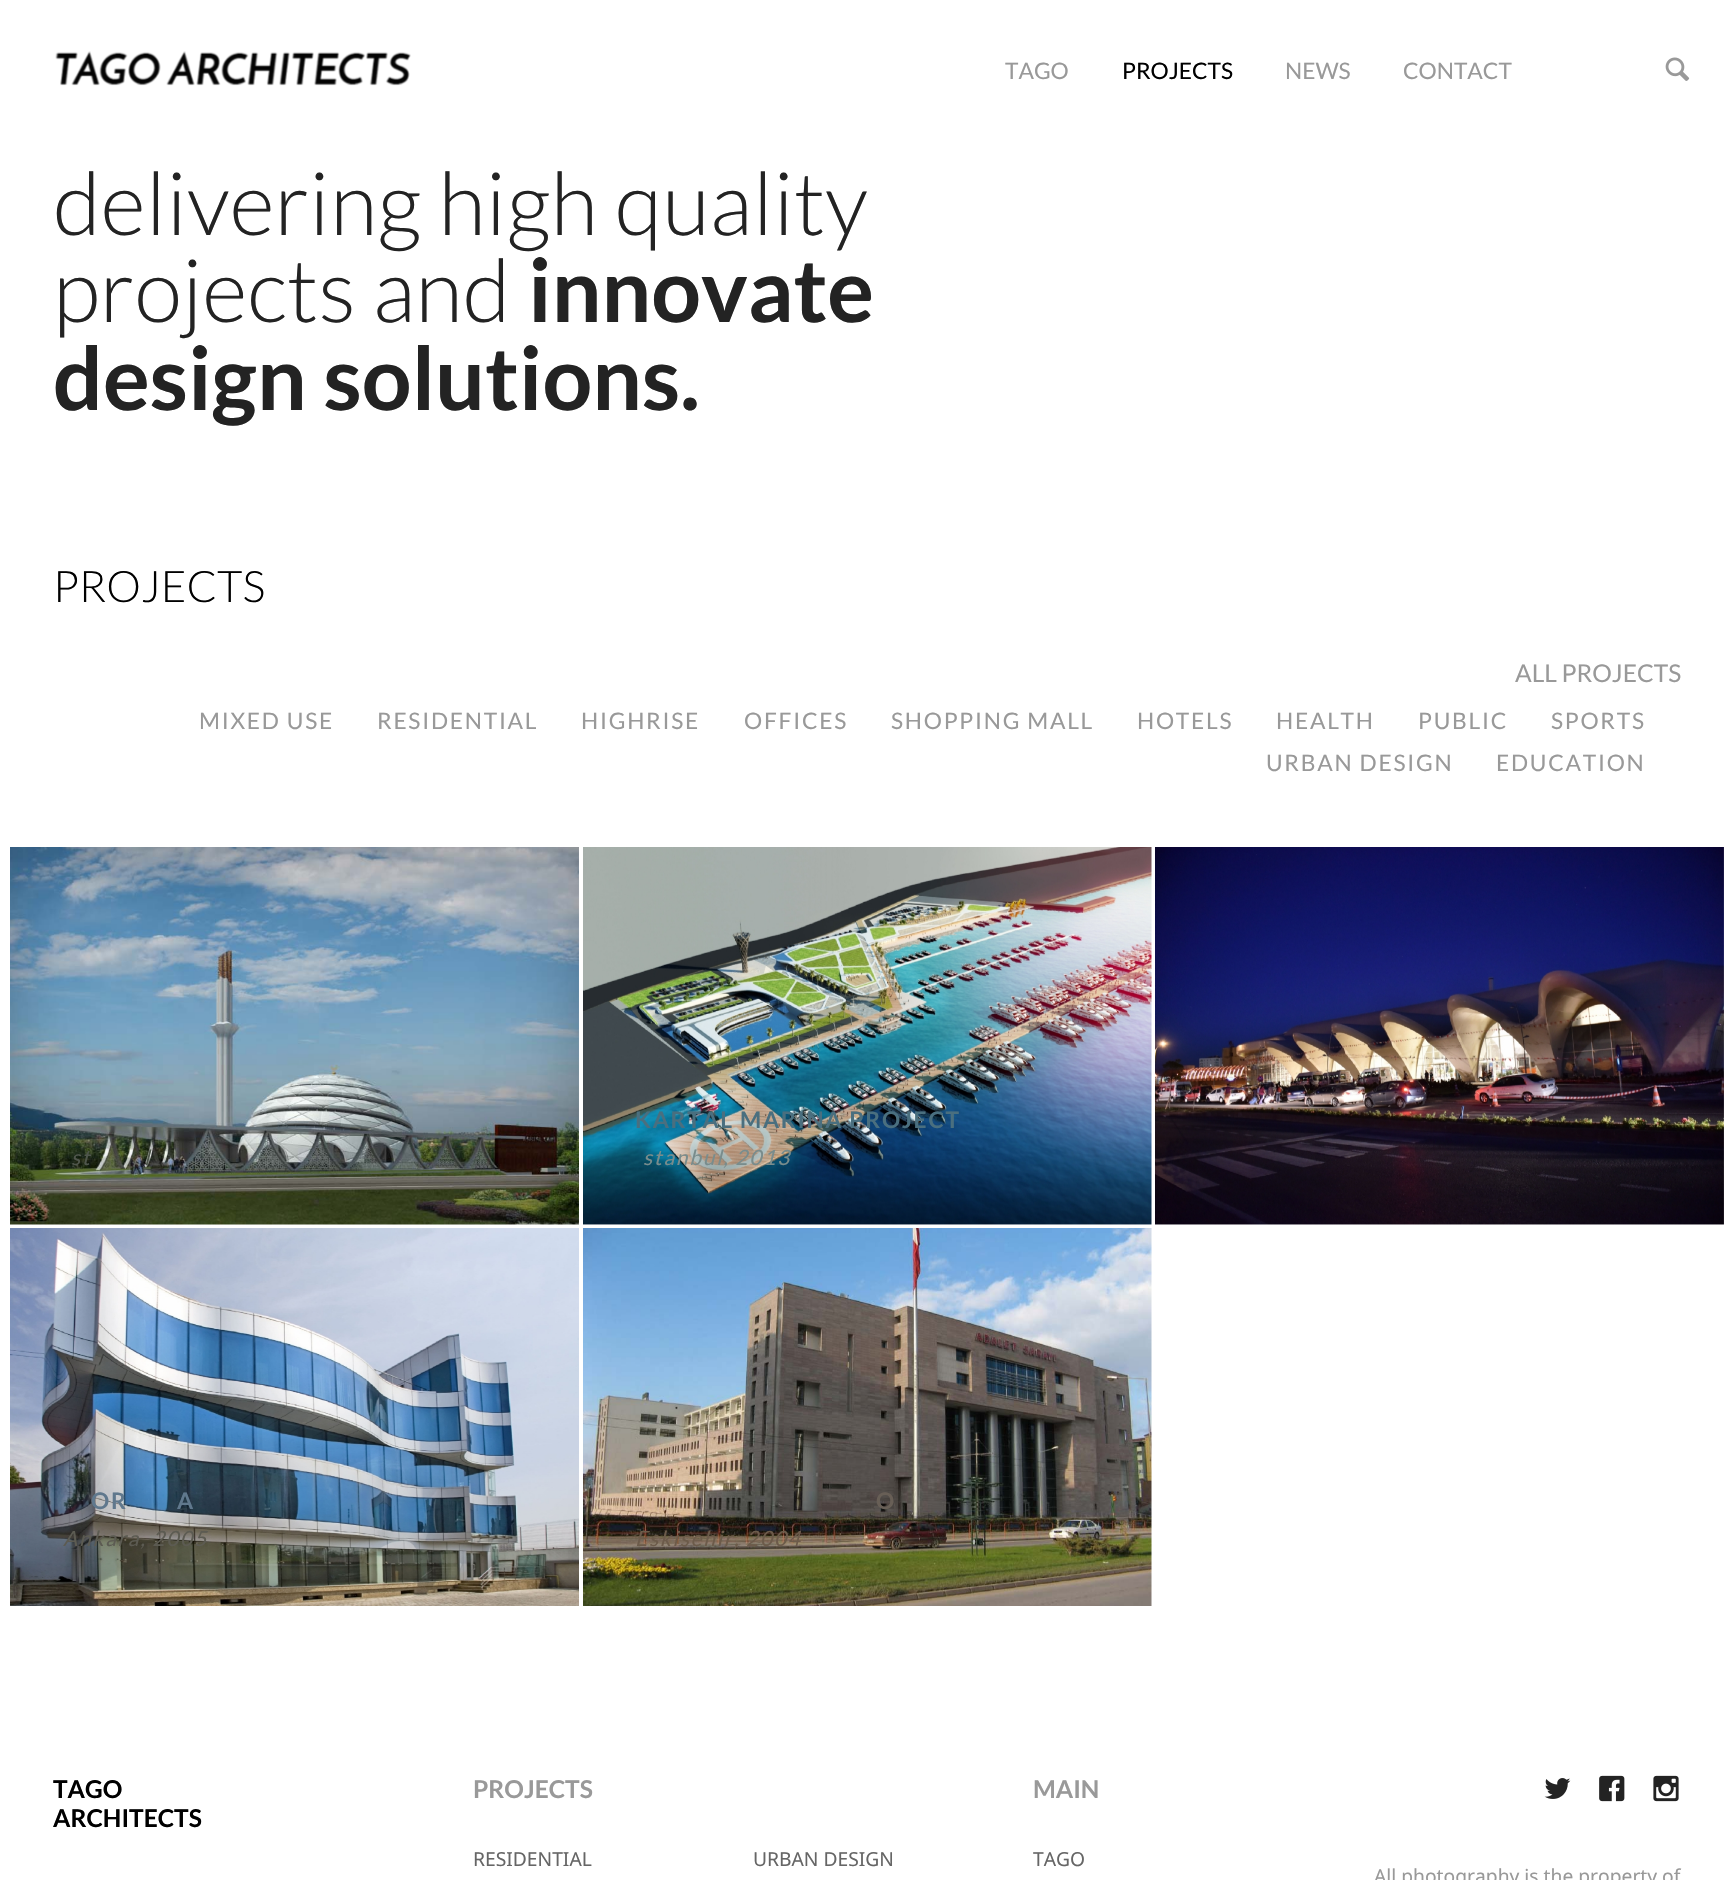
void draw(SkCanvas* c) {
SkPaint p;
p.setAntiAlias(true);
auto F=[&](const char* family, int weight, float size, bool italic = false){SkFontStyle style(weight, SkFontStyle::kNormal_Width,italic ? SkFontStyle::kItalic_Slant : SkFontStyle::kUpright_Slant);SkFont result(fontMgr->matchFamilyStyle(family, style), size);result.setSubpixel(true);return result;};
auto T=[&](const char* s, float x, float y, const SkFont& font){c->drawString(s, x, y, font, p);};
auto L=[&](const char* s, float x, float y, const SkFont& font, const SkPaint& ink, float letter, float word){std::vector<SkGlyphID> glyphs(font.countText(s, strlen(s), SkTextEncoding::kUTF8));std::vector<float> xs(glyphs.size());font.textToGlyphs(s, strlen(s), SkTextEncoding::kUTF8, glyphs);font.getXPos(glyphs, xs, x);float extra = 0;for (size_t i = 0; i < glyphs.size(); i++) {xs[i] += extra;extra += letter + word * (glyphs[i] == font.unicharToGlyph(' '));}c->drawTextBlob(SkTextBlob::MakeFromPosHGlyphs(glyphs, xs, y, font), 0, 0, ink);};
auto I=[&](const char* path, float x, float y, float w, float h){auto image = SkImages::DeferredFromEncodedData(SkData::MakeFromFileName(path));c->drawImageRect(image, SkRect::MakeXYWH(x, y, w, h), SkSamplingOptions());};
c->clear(0xffffffff);
I("1.png",55,51,356,35);
auto f1 = F("Lato",400,22.75);
p.setColor(0xff999999);
T("TAGO",1005,79,f1);
p.setColor(0xff000000);
T("PROJECTS",1122,79,f1);
p.setColor(0xff999999);
T("NEWS",1285,79,f1);
T("CONTACT",1403,79,f1);
I("2.png",1665,57,25,24);
auto f2 = F("Lato",300,87.5);
p.setColor(0xff232323);
T("delivering high quality",53,235,f2);
T("projects and",53,322,f2);
auto f3 = F("Lato",700,87.5);
T("innovate",528,322,f3);
T("design solutions.",53,410,f3);
auto f4 = F("Lato",300,43.5);
p.setColor(0xff000000);
T("PROJECTS",53,602,f4);
auto f5 = F("Lato",400,24.5);
p.setColor(0xff999999);
T("ALL PROJECTS",1515,682,f5);
L("MIXED USE",199,729,f1,p,1.75,0);
L("RESIDENTIAL",377,729,f1,p,1.75,0);
L("HIGHRISE",581,729,f1,p,1.75,0);
L("OFFICES",744,729,f1,p,1.75,0);
L("SHOPPING MALL",891,729,f1,p,1.75,0);
L("HOTELS",1137,729,f1,p,1.75,0);
L("HEALTH",1276,729,f1,p,1.75,0);
L("PUBLIC",1418,729,f1,p,1.75,0);
L("SPORTS",1551,729,f1,p,1.75,0);
L("URBAN DESIGN",1266,771,f1,p,1.75,0);
L("EDUCATION",1496,771,f1,p,1.75,0);
I("3.png",10,847,569,378);
auto f6 = F("Lato",400,21,true);
p.setColor(0xff4f564c);
L("st",71,1165,f6,p,1.75,0);
L("l",144,1165,f6,p,1.75,0);
I("4.png",583,847,569,378);
auto f7 = F("Lato",700,22.75);
p.setColor(0xff4a6f7f);
L("KARTAL MARINA PROJECT",635,1128,f7,p,1.75,0);
p.setColor(0xff798c8c);
L("stanbul, 2013",643,1165,f6,p,1.75,0);
I("5.png",1155,847,569,378);
I("6.png",10,1228,569,378);
p.setColor(0xff60788d);
L("OR",91,1509,f7,p,1.75,0);
L("A",177,1509,f7,p,1.75,0);
p.setColor(0xff5c5b52);
L("Ankara, 2005",63,1546,f6,p,1.75,0);
I("7.png",583,1228,569,378);
p.setColor(0xff685f56);
L("O",876,1509,f7,p,1.75,0);
p.setColor(0xff6c5b4a);
L("Eskisehir, 2004",635,1546,f6,p,1.75,0);
auto f8 = F("Lato",700,24.5);
p.setColor(0xff000000);
T("TAGO",53,1798,f8);
T("ARCHITECTS",53,1827,f8);
p.setColor(0xff999999);
T("PROJECTS",473,1798,f8);
auto f9 = F("Noto Sans",400,19.25);
p.setColor(0xff666666);
T("RESIDENTIAL",473,1866,f9);
T("URBAN DESIGN",753,1866,f9);
p.setColor(0xff999999);
T("MAIN",1033,1798,f8);
p.setColor(0xff666666);
T("TAGO",1033,1866,f9);
I("8.png",1544,1778,27,21);
I("9.png",1599,1775,26,27);
I("10.png",1653,1775,26,27);
p.setColor(0xff999999);
T("All photography is the property of",1374,1883,f9);
}
